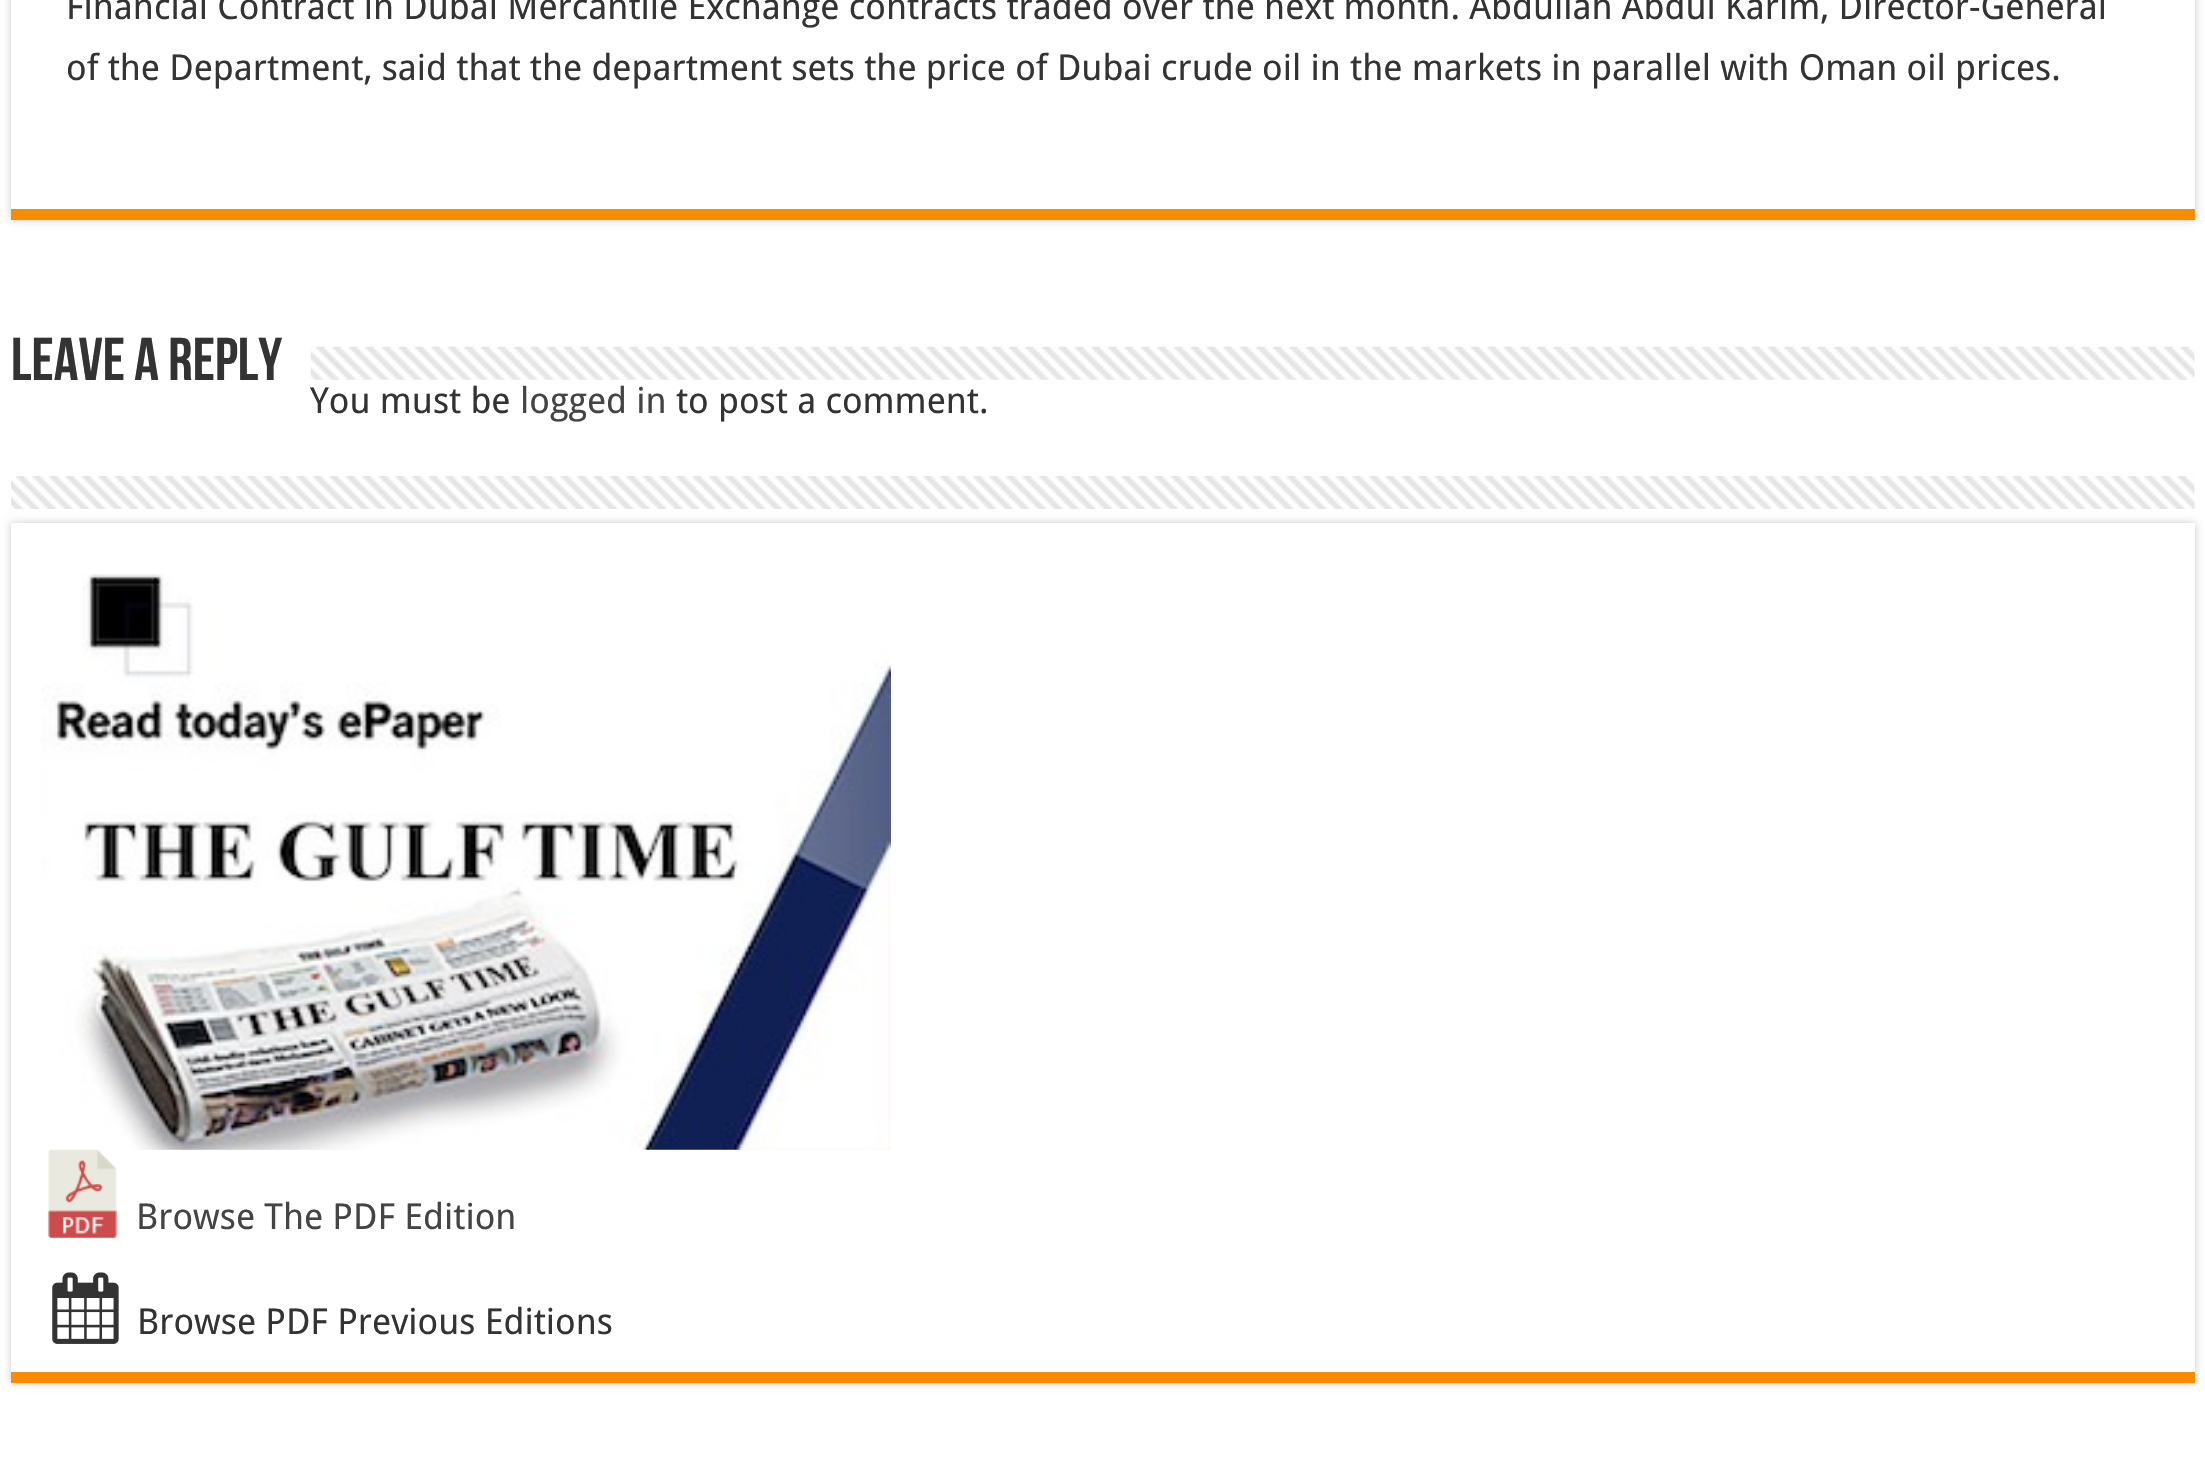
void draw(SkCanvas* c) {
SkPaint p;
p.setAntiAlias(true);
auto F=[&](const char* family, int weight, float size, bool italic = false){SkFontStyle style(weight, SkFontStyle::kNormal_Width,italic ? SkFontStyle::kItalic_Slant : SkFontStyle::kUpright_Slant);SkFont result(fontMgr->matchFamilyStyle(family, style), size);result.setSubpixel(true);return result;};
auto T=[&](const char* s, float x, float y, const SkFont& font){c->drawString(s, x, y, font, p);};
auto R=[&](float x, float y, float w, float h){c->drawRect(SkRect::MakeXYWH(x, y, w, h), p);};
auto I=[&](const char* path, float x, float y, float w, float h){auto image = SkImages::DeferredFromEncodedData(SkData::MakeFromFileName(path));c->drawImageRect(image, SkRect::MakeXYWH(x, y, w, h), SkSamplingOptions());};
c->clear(0xffffffff);
p.setColor(0xffcacaca);
p.setMaskFilter(SkMaskFilter::MakeBlur(kNormal_SkBlurStyle, 4));
c->drawRect(SkRect::MakeXYWH(11,-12,2184,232),p);
p.setMaskFilter(nullptr);
p.setColor(0xffffffff);
R(11,0,2184,209);
p.setColor(0xfff88c00);
R(11,209,2184,11);
auto f1 = F("Droid Sans",400,35.75);
p.setColor(0xff333333);
T("Financial Contract in Dubai Mercantile Exchange contracts traded over the next month. Abdullah Abdul Karim, Director-General",66,19,f1);
T("of the Department, said that the department sets the price of Dubai crude oil in the markets in parallel with Oman oil prices.",66,80,f1);
auto f2 = F("Bebas Neue",700,60.5);
T("Leave a Reply",11,380,f2);
I("1.png",310,346,1885,34);
T("You must be",310,413,f1);
p.setColor(0xff444444);
T("logged in",520,413,f1);
p.setColor(0xff333333);
T("to post a comment.",676,413,f1);
I("2.png",11,476,2184,33);
p.setColor(0xffcacaca);
p.setMaskFilter(SkMaskFilter::MakeBlur(kNormal_SkBlurStyle, 4));
c->drawRect(SkRect::MakeXYWH(11,523,2184,860),p);
p.setMaskFilter(nullptr);
p.setColor(0xffffffff);
R(11,523,2184,849);
p.setColor(0xfff88c00);
R(11,1372,2184,11);
I("3.png",41,574,850,576);
I("4.png",48,1149,70,89);
p.setColor(0xff444444);
T("Browse The PDF Edition",136,1229,f1);
I("5.png",52,1272,67,72);
p.setColor(0xff333333);
T("Browse PDF Previous Editions",137,1334,f1);
}
